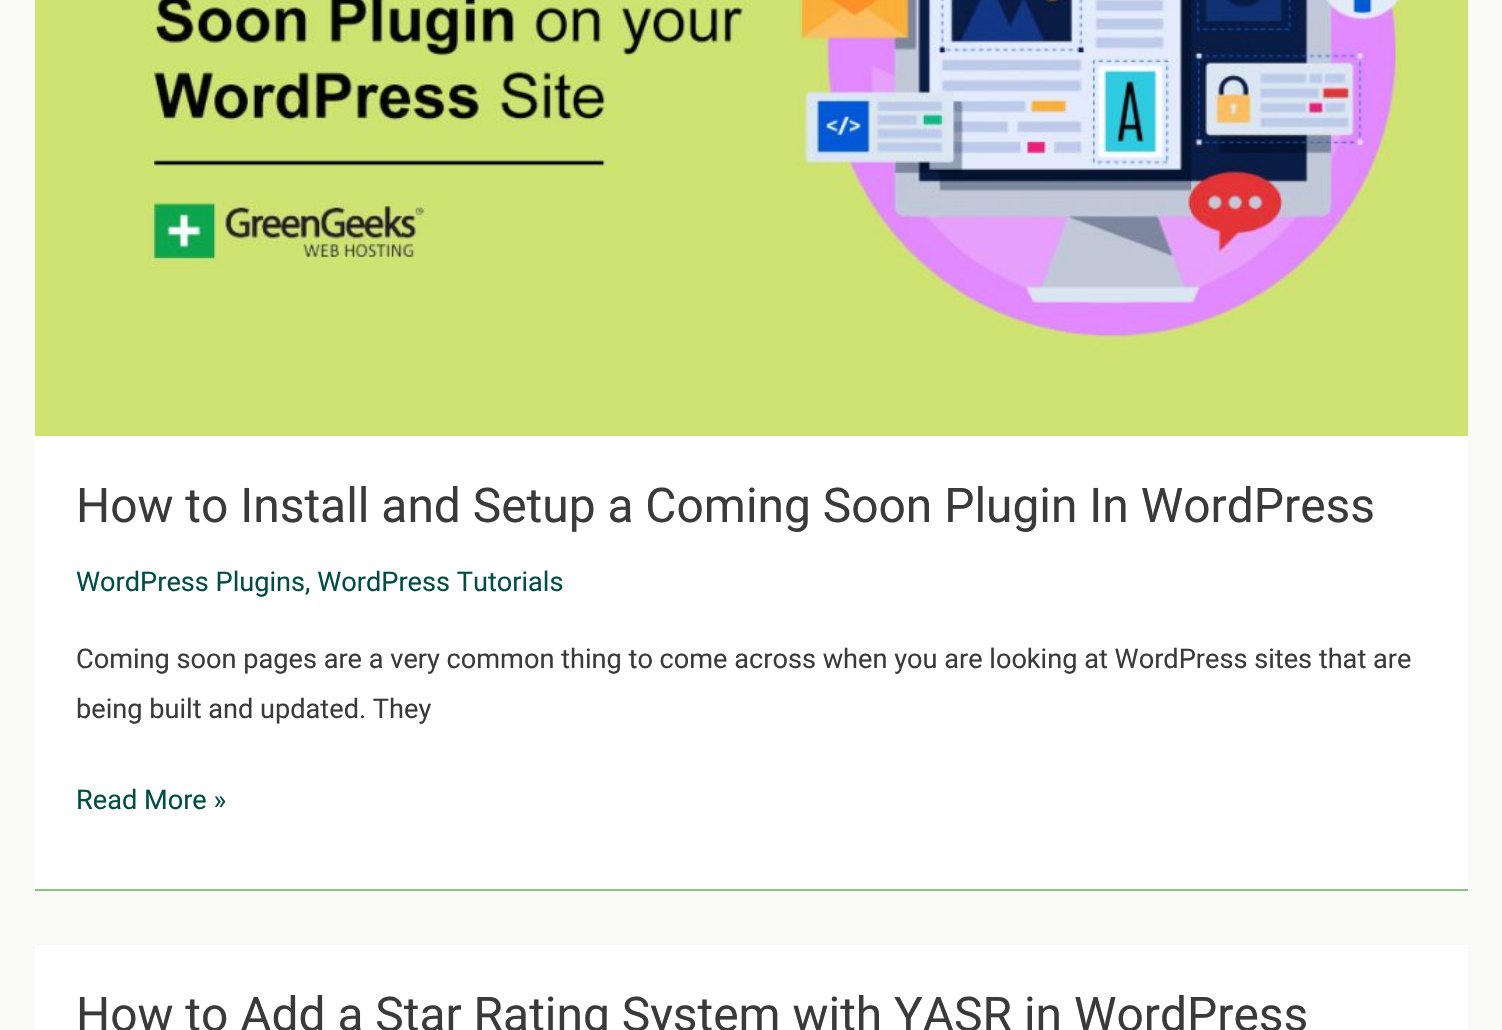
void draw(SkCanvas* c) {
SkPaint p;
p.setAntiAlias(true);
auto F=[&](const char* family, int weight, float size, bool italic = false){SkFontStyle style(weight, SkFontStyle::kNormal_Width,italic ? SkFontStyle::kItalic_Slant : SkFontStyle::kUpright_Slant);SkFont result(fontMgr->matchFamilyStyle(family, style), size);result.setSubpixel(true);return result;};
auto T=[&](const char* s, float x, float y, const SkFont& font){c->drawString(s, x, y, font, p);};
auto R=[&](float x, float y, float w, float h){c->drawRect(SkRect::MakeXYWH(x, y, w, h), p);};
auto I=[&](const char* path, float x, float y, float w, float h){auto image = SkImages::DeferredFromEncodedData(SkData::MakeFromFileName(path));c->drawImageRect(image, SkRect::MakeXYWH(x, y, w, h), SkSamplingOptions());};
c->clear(0xfffafaf7);
p.setColor(0xff88c57f);
R(35,889,1433,2);
p.setColor(0xffffffff);
R(35,436,1433,453);
I("1.png",35,0,1434,436);
auto f1 = F("Roboto",400,47.9);
p.setColor(0xff3a3a3a);
T("How to Install and Setup a Coming Soon Plugin In WordPress",76,522,f1);
auto f2 = F("Roboto",400,27.15);
p.setColor(0xff004d45);
T("WordPress Plugins, WordPress Tutorials",76,591,f2);
p.setColor(0xff3a3a3a);
T("Coming soon pages are a very common thing to come across when you are looking at WordPress sites that are",76,668,f2);
T("being built and updated. They",76,718,f2);
p.setColor(0xff004d45);
T("Read More »",76,809,f2);
p.setColor(0xffffffff);
R(35,945,1433,85);
p.setColor(0xff3a3a3a);
T("How to Add a Star Rating System with YASR in WordPress",76,1031,f1);
}
